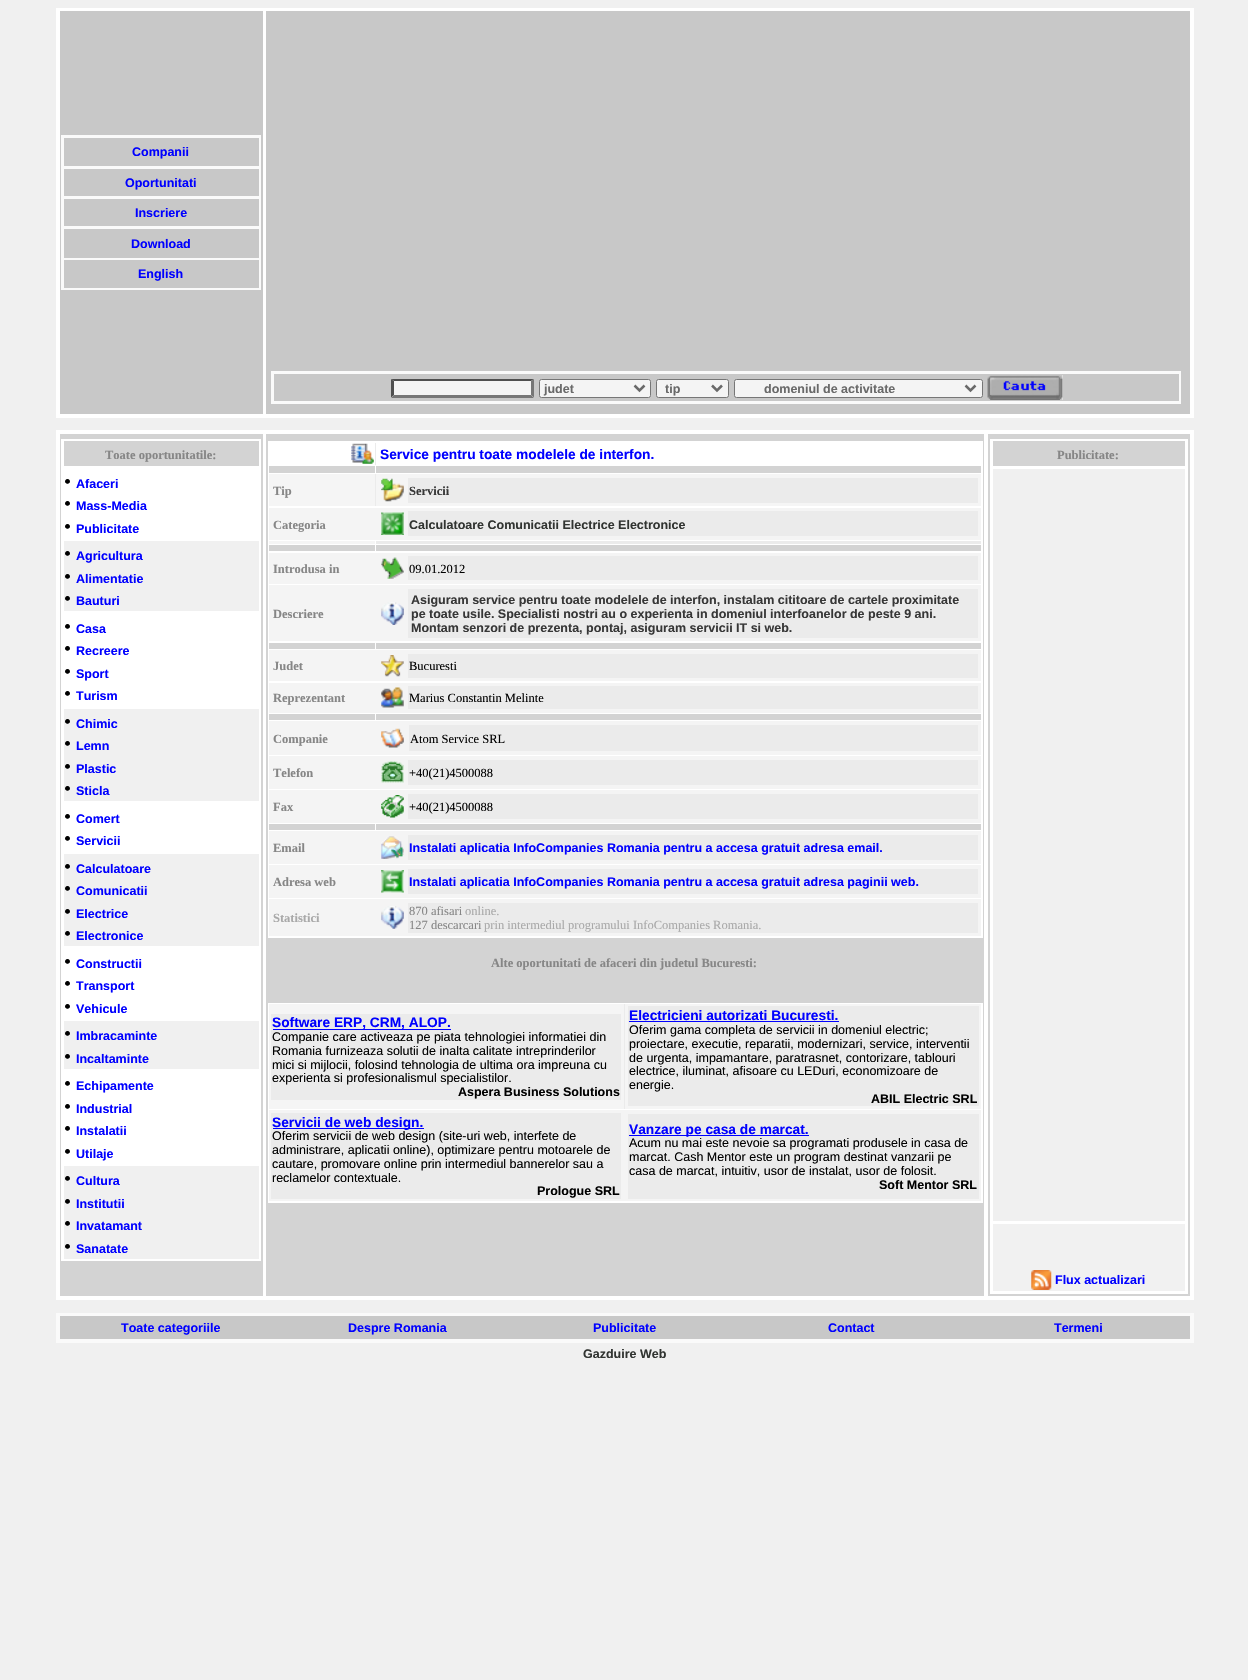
void draw(SkCanvas* c) {
SkPaint p;
p.setAntiAlias(true);
auto F=[&](const char* family, int weight, float size, bool italic = false){SkFontStyle style(weight, SkFontStyle::kNormal_Width,italic ? SkFontStyle::kItalic_Slant : SkFontStyle::kUpright_Slant);SkFont result(fontMgr->matchFamilyStyle(family, style), size);result.setSubpixel(true);return result;};
auto T=[&](const char* s, float x, float y, const SkFont& font){c->drawString(s, x, y, font, p);};
auto R=[&](float x, float y, float w, float h){c->drawRect(SkRect::MakeXYWH(x, y, w, h), p);};
auto I=[&](const char* path, float x, float y, float w, float h){auto image = SkImages::DeferredFromEncodedData(SkData::MakeFromFileName(path));c->drawImageRect(image, SkRect::MakeXYWH(x, y, w, h), SkSamplingOptions());};
auto P=[&](const char* data, bool evenOdd = false){SkPath result = *SkParsePath::FromSVGString(data);if (evenOdd) result.setFillType(SkPathFillType::kEvenOdd);return result;};
c->clear(0xfff0f0f0);
p.setColor(0xffffffff);
R(56,8,1138,410);
p.setColor(0xffc8c8c8);
R(60,11,203,403);
p.setColor(0xfffafafa);
R(61,135,200,155);
p.setColor(0xffc8c8c8);
R(64,138,195,28);
auto f1 = F("Liberation Sans",700,12.5);
p.setColor(0xff0000ff);
T("Companii",132,156,f1);
p.setColor(0xffc8c8c8);
R(64,169,195,27);
p.setColor(0xff0000ff);
T("Oportunitati",125,187,f1);
p.setColor(0xffc8c8c8);
R(64,199,195,27);
p.setColor(0xff0000ff);
T("Inscriere",135,217,f1);
p.setColor(0xffc8c8c8);
R(64,229,195,29);
p.setColor(0xff0000ff);
T("Download",131,248,f1);
p.setColor(0xffc8c8c8);
R(64,260,195,28);
p.setColor(0xff0000ff);
T("English",138,278,f1);
p.setColor(0xffc8c8c8);
R(266,11,924,403);
p.setColor(0xfffafafa);
R(271,371,910,33);
p.setColor(0xffc8c8c8);
R(274,374,905,27);
p.setColor(0xfff4f4f4);
R(391,379,143,19);
p.setColor(0xff4f4f4f);
c->drawPath(P("M391 379h143l-3 2h-137z"),p);
p.setColor(0xff767676);
c->drawPath(P("M534 379v18.5l-3-2.5v-14z"),p);
c->drawPath(P("M534 398h-143l3-3h137z"),p);
p.setColor(0xff4f4f4f);
c->drawPath(P("M391 397.5v-18.5l3 2v14z"),p);
p.setColor(0xfff4f4f4);
c->drawRoundRect(SkRect::MakeXYWH(539.5,379.5,111,18),2,2,p);
p.setStroke(true);
p.setStrokeWidth(1);
p.setColor(0xff767676);
c->drawRoundRect(SkRect::MakeXYWH(539.5,379.5,111,18),2,2,p);
p.setStrokeWidth(2.5);
p.setColor(0xff696969);
c->drawPath(P("M634.5 385.5l5 5l5-5"),p);
p.setStroke(false);
T("judet",544,393,f1);
p.setColor(0xfff4f4f4);
c->drawRoundRect(SkRect::MakeXYWH(656.5,379.5,72,18),2,2,p);
p.setStroke(true);
p.setStrokeWidth(1);
p.setColor(0xff767676);
c->drawRoundRect(SkRect::MakeXYWH(656.5,379.5,72,18),2,2,p);
p.setStrokeWidth(2.5);
p.setColor(0xff696969);
c->drawPath(P("M712 385.5l5 5l5-5"),p);
p.setStroke(false);
T("tip",665,393,f1);
p.setColor(0xfff4f4f4);
c->drawRoundRect(SkRect::MakeXYWH(734.5,379.5,248,18),2,2,p);
p.setStroke(true);
p.setStrokeWidth(1);
p.setColor(0xff767676);
c->drawRoundRect(SkRect::MakeXYWH(734.5,379.5,248,18),2,2,p);
p.setStrokeWidth(2.5);
p.setColor(0xff696969);
c->drawPath(P("M965.5 385.5l5 5l5-5"),p);
p.setStroke(false);
T("domeniul de activitate",764,393,f1);
p.setColor(0xfff4f4f4);
R(1062,375,1,25);
I("1.png",987,375,76,25);
p.setColor(0xffffffff);
R(56,430,1138,870);
p.setColor(0xffd3d3d3);
R(60,434,203,862);
p.setColor(0xffffffff);
R(61,439,200,822);
p.setColor(0xffd3d3d3);
R(64,441,195,25);
auto f2 = F("Liberation Serif",700,12.5);
p.setColor(0xff868686);
T("Toate oportunitatile:",105,459,f2);
auto f3 = F("Liberation Serif",400,20);
p.setColor(0xff000000);
T("•",64,488,f3);
p.setColor(0xff0000ff);
T("Afaceri",76,488,f1);
p.setColor(0xff000000);
T("•",64,510,f3);
p.setColor(0xff0000ff);
T("Mass-Media",76,510,f1);
p.setColor(0xff000000);
T("•",64,533,f3);
p.setColor(0xff0000ff);
T("Publicitate",76,533,f1);
p.setColor(0xfff0f0f0);
R(64,541,195,70);
p.setColor(0xff000000);
T("•",64,560,f3);
p.setColor(0xff0000ff);
T("Agricultura",76,560,f1);
p.setColor(0xff000000);
T("•",64,583,f3);
p.setColor(0xff0000ff);
T("Alimentatie",76,583,f1);
p.setColor(0xff000000);
T("•",64,605,f3);
p.setColor(0xff0000ff);
T("Bauturi",76,605,f1);
p.setColor(0xff000000);
T("•",64,633,f3);
p.setColor(0xff0000ff);
T("Casa",76,633,f1);
p.setColor(0xff000000);
T("•",64,655,f3);
p.setColor(0xff0000ff);
T("Recreere",76,655,f1);
p.setColor(0xff000000);
T("•",64,678,f3);
p.setColor(0xff0000ff);
T("Sport",76,678,f1);
p.setColor(0xff000000);
T("•",64,700,f3);
p.setColor(0xff0000ff);
T("Turism",76,700,f1);
p.setColor(0xfff0f0f0);
R(64,709,195,92);
p.setColor(0xff000000);
T("•",64,728,f3);
p.setColor(0xff0000ff);
T("Chimic",76,728,f1);
p.setColor(0xff000000);
T("•",64,750,f3);
p.setColor(0xff0000ff);
T("Lemn",76,750,f1);
p.setColor(0xff000000);
T("•",64,773,f3);
p.setColor(0xff0000ff);
T("Plastic",76,773,f1);
p.setColor(0xff000000);
T("•",64,795,f3);
p.setColor(0xff0000ff);
T("Sticla",76,795,f1);
p.setColor(0xff000000);
T("•",64,823,f3);
p.setColor(0xff0000ff);
T("Comert",76,823,f1);
p.setColor(0xff000000);
T("•",64,845,f3);
p.setColor(0xff0000ff);
T("Servicii",76,845,f1);
p.setColor(0xfff0f0f0);
R(64,854,195,92);
p.setColor(0xff000000);
T("•",64,873,f3);
p.setColor(0xff0000ff);
T("Calculatoare",76,873,f1);
p.setColor(0xff000000);
T("•",64,895,f3);
p.setColor(0xff0000ff);
T("Comunicatii",76,895,f1);
p.setColor(0xff000000);
T("•",64,918,f3);
p.setColor(0xff0000ff);
T("Electrice",76,918,f1);
p.setColor(0xff000000);
T("•",64,940,f3);
p.setColor(0xff0000ff);
T("Electronice",76,940,f1);
p.setColor(0xff000000);
T("•",64,968,f3);
p.setColor(0xff0000ff);
T("Constructii",76,968,f1);
p.setColor(0xff000000);
T("•",64,990,f3);
p.setColor(0xff0000ff);
T("Transport",76,990,f1);
p.setColor(0xff000000);
T("•",64,1013,f3);
p.setColor(0xff0000ff);
T("Vehicule",76,1013,f1);
p.setColor(0xfff0f0f0);
R(64,1021,195,48);
p.setColor(0xff000000);
T("•",64,1040,f3);
p.setColor(0xff0000ff);
T("Imbracaminte",76,1040,f1);
p.setColor(0xff000000);
T("•",64,1063,f3);
p.setColor(0xff0000ff);
T("Incaltaminte",76,1063,f1);
p.setColor(0xff000000);
T("•",64,1090,f3);
p.setColor(0xff0000ff);
T("Echipamente",76,1090,f1);
p.setColor(0xff000000);
T("•",64,1113,f3);
p.setColor(0xff0000ff);
T("Industrial",76,1113,f1);
p.setColor(0xff000000);
T("•",64,1135,f3);
p.setColor(0xff0000ff);
T("Instalatii",76,1135,f1);
p.setColor(0xff000000);
T("•",64,1158,f3);
p.setColor(0xff0000ff);
T("Utilaje",76,1158,f1);
p.setColor(0xfff0f0f0);
R(64,1166,195,93);
p.setColor(0xff000000);
T("•",64,1185,f3);
p.setColor(0xff0000ff);
T("Cultura",76,1185,f1);
p.setColor(0xff000000);
T("•",64,1208,f3);
p.setColor(0xff0000ff);
T("Institutii",76,1208,f1);
p.setColor(0xff000000);
T("•",64,1230,f3);
p.setColor(0xff0000ff);
T("Invatamant",76,1230,f1);
p.setColor(0xff000000);
T("•",64,1253,f3);
p.setColor(0xff0000ff);
T("Sanatate",76,1253,f1);
p.setColor(0xffd3d3d3);
R(266,434,718,862);
p.setColor(0xffffffff);
R(268,441,715,497);
p.setColor(0xffebebeb);
R(375,443,1,22);
I("2.png",351,443,23,21);
auto f4 = F("Liberation Sans",700,13.75);
p.setColor(0xff0000ff);
T("Service pentru toate modelele de interfon.",380,459,f4);
p.setColor(0xffd3d3d3);
R(269,466,106,7);
R(376,466,605,7);
p.setColor(0xffebebeb);
R(375,474,1,32);
p.setColor(0xfff5f5f5);
R(269,474,106,32);
p.setColor(0xff868686);
T("Tip",273,495,f2);
p.setColor(0xfff5f5f5);
R(376,474,605,32);
I("3.png",381,478,23,24);
p.setColor(0xffebebeb);
R(408,478,570,25);
p.setColor(0xff373737);
T("Servicii",409,495,f2);
p.setColor(0xfff4f4f4);
R(269,508,712,32);
p.setColor(0xff868686);
T("Categoria",273,529,f2);
I("4.png",381,512,23,23);
p.setColor(0xffebebeb);
R(408,511,570,25);
p.setColor(0xff313431);
T("Calculatoare Comunicatii Electrice Electronice",409,529,f1);
p.setColor(0xfff5f5f5);
R(269,541,106,3);
p.setColor(0xffebebeb);
R(376,541,605,3);
p.setColor(0xffd3d3d3);
R(269,545,106,6);
R(376,545,605,6);
p.setColor(0xfff4f4f4);
R(269,553,712,31);
p.setColor(0xff868686);
T("Introdusa in",273,573,f2);
I("5.png",381,557,23,22);
p.setColor(0xffebebeb);
R(408,556,570,24);
auto f5 = F("Liberation Serif",400,12.5);
p.setColor(0xff000000);
T("09.01.2012",409,573,f5);
p.setColor(0xfff4f4f4);
R(269,585,712,56);
p.setColor(0xff868686);
T("Descriere",273,618,f2);
I("6.png",381,602,23,23);
p.setColor(0xffebebeb);
R(408,589,570,49);
p.setColor(0xff373737);
T("Asiguram service pentru toate modelele de interfon, instalam cititoare de cartele proximitate",411,604,f1);
T("pe toate usile. Specialisti nostri au o experienta in domeniul interfoanelor de peste 9 ani.",411,618,f1);
T("Montam senzori de prezenta, pontaj, asiguram servicii IT si web.",411,632,f1);
p.setColor(0xffd3d3d3);
R(269,643,106,6);
R(376,643,605,6);
p.setColor(0xfff4f4f4);
R(269,650,712,31);
p.setColor(0xff868686);
T("Judet",273,670,f2);
I("7.png",381,655,23,22);
p.setColor(0xffebebeb);
R(408,654,570,24);
p.setColor(0xff000000);
T("Bucuresti",409,670,f5);
p.setColor(0xfff4f4f4);
R(269,683,712,30);
p.setColor(0xff868686);
T("Reprezentant",273,702,f2);
I("8.png",381,687,23,21);
p.setColor(0xffebebeb);
R(408,686,570,23);
p.setColor(0xff000000);
T("Marius Constantin Melinte",409,702,f5);
p.setColor(0xffd3d3d3);
R(269,714,106,6);
R(376,714,605,6);
p.setColor(0xfff4f4f4);
R(269,721,712,34);
p.setColor(0xff868686);
T("Companie",273,743,f2);
I("9.png",381,728,23,20);
p.setColor(0xffebebeb);
R(409,725,569,26);
p.setColor(0xff000000);
T("Atom Service SRL",410,743,f5);
p.setColor(0xfff4f4f4);
R(269,756,712,33);
p.setColor(0xff868686);
T("Telefon",273,777,f2);
I("10.png",381,761,23,22);
p.setColor(0xffebebeb);
R(408,760,570,25);
p.setColor(0xff000000);
T("+40(21)4500088",409,777,f5);
p.setColor(0xfff4f4f4);
R(269,790,712,33);
p.setColor(0xff868686);
T("Fax",273,811,f2);
I("11.png",381,795,23,23);
p.setColor(0xffebebeb);
R(408,794,570,25);
p.setColor(0xff000000);
T("+40(21)4500088",409,811,f5);
p.setColor(0xffd3d3d3);
R(269,824,106,6);
R(376,824,605,6);
p.setColor(0xfff4f4f4);
R(269,831,712,33);
p.setColor(0xff868686);
T("Email",273,852,f2);
I("12.png",381,836,23,23);
p.setColor(0xffebebeb);
R(408,835,570,25);
p.setColor(0xff0000ff);
T("Instalati aplicatia InfoCompanies Romania pentru a accesa gratuit adresa email.",409,852,f1);
p.setColor(0xfff4f4f4);
R(269,865,712,33);
p.setColor(0xff868686);
T("Adresa web",273,886,f2);
I("13.png",381,870,23,23);
p.setColor(0xffebebeb);
R(408,869,570,25);
p.setColor(0xff0000ff);
T("Instalati aplicatia InfoCompanies Romania pentru a accesa gratuit adresa paginii web.",409,886,f1);
p.setColor(0xfff4f4f4);
R(269,899,712,37);
p.setColor(0xffa9a9a9);
T("Statistici",273,922,f2);
I("14.png",381,906,23,23);
p.setColor(0xffebebeb);
R(408,903,570,30);
p.setColor(0xff868686);
T("870 afisari",409,915,f5);
p.setColor(0xffa9a9a9);
T("online.",465,915,f5);
p.setColor(0xff868686);
T("127 descarcari",409,929,f5);
p.setColor(0xffa9a9a9);
T("prin intermediul programului InfoCompanies Romania.",484,929,f5);
p.setColor(0xff868686);
T("Alte oportunitati de afaceri din judetul Bucuresti:",491,967,f2);
p.setColor(0xffffffff);
R(268,1003,715,200);
p.setColor(0xffebebeb);
R(624,1004,1,105);
p.setColor(0xfff5f5f5);
R(269,1004,355,105);
p.setColor(0xffebebeb);
R(271,1014,350,86);
p.setColor(0xff0000ff);
R(273,1029,178,1);
T("Software ERP, CRM, ALOP.",272,1027,f4);
auto f6 = F("Liberation Sans",400,12.5);
p.setColor(0xff000000);
T("Companie care activeaza pe piata tehnologiei informatiei din",272,1041,f6);
T("Romania furnizeaza solutii de inalta calitate intreprinderilor",272,1055,f6);
T("mici si mijlocii, folosind tehnologia de ultima ora impreuna cu",272,1069,f6);
T("experienta si profesionalismul specialistilor.",272,1082,f6);
T("Aspera Business Solutions",458,1096,f1);
p.setColor(0xfff5f5f5);
R(625,1004,356,105);
p.setColor(0xffebebeb);
R(628,1006,351,100);
p.setColor(0xff0000ff);
T("Electricieni autorizati Bucuresti.",629,1020,f4);
R(629,1021,210,1);
p.setColor(0xff000000);
T("Oferim gama completa de servicii in domeniul electric;",629,1034,f6);
T("proiectare, executie, reparatii, modernizari, service, interventii",629,1048,f6);
T("de urgenta, impamantare, paratrasnet, contorizare, tablouri",629,1062,f6);
T("electrice, iluminat, afisoare cu LEDuri, economizoare de",629,1075,f6);
T("energie.",629,1089,f6);
T("ABIL Electric SRL",871,1103,f1);
p.setColor(0xfff4f4f4);
R(269,1110,712,91);
p.setColor(0xffebebeb);
R(271,1113,350,86);
p.setColor(0xff0000ff);
R(273,1128,151,1);
T("Servicii de web design.",272,1127,f4);
p.setColor(0xff000000);
T("Oferim servicii de web design (site-uri web, interfete de",272,1140,f6);
T("administrare, aplicatii online), optimizare pentru motoarele de",272,1154,f6);
T("cautare, promovare online prin intermediul bannerelor sau a",272,1168,f6);
T("reclamelor contextuale.",272,1182,f6);
T("Prologue SRL",537,1195,f1);
p.setColor(0xffebebeb);
R(628,1114,351,85);
p.setColor(0xff0000ff);
R(629,1135,180,1);
T("Vanzare pe casa de marcat.",629,1134,f4);
p.setColor(0xff000000);
T("Acum nu mai este nevoie sa programati produsele in casa de",629,1147,f6);
T("marcat. Cash Mentor este un program destinat vanzarii pe",629,1161,f6);
T("casa de marcat, intuitiv, usor de instalat, usor de folosit.",629,1175,f6);
T("Soft Mentor SRL",879,1189,f1);
p.setColor(0xffd3d3d3);
R(988,434,202,862);
p.setColor(0xffffffff);
R(990,439,198,855);
p.setColor(0xffd3d3d3);
R(993,441,192,25);
p.setColor(0xff868686);
T("Publicitate:",1057,459,f2);
p.setColor(0xfff0f0f0);
R(993,469,192,752);
p.setColor(0xfff1f1f1);
R(993,1224,192,67);
I("15.png",1031,1270,21,20);
p.setColor(0xff0000ff);
T("Flux actualizari",1055,1284,f1);
p.setColor(0xfffafafa);
R(56,1313,1138,30);
p.setColor(0xffc8c8c8);
R(60,1316,1130,23);
p.setColor(0xff0000ff);
T("Toate categoriile",121,1332,f1);
T("Despre Romania",348,1332,f1);
T("Publicitate",593,1332,f1);
T("Contact",828,1332,f1);
T("Termeni",1054,1332,f1);
p.setColor(0xff313431);
T("Gazduire Web",583,1358,f1);
}
